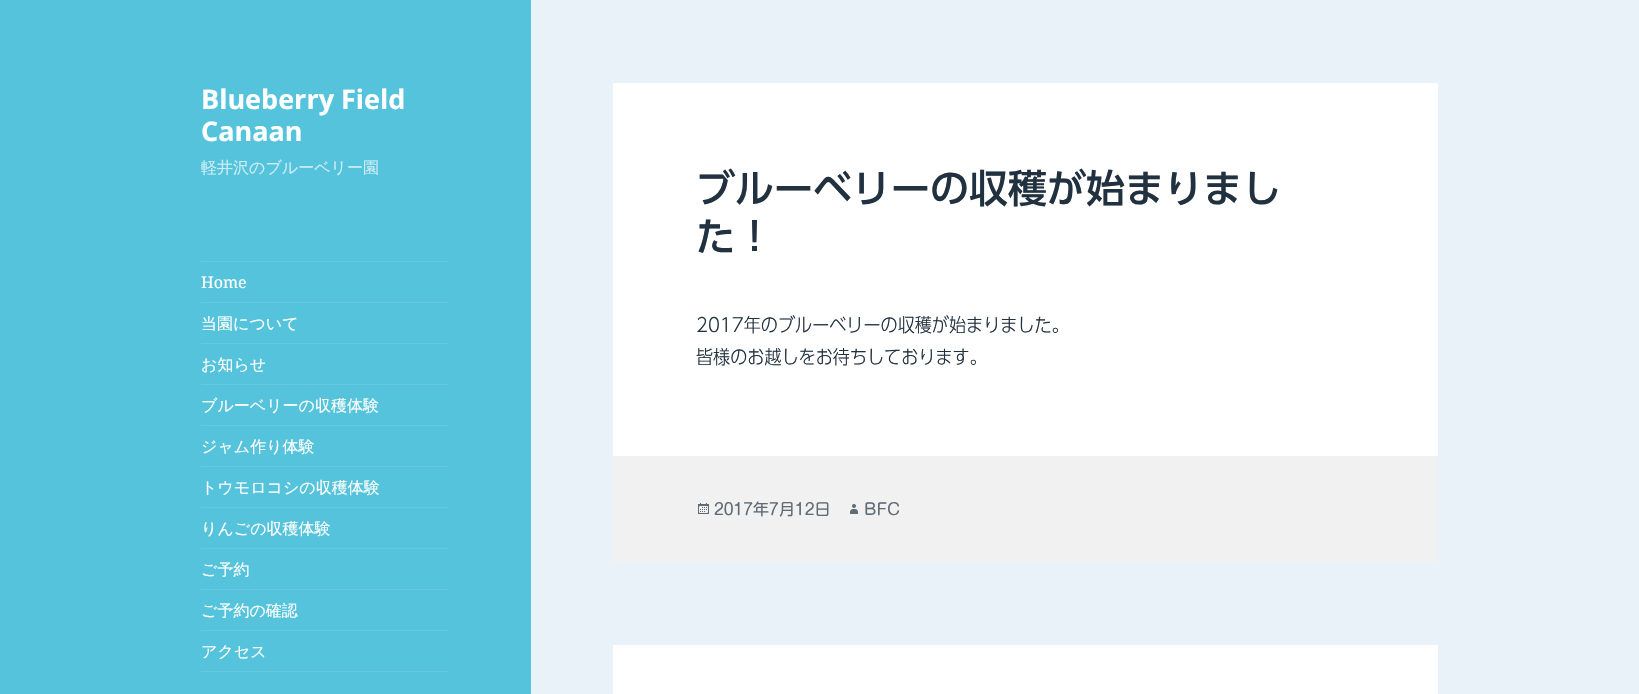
void draw(SkCanvas* c) {
SkPaint p;
p.setAntiAlias(true);
auto F=[&](const char* family, int weight, float size, bool italic = false){SkFontStyle style(weight, SkFontStyle::kNormal_Width,italic ? SkFontStyle::kItalic_Slant : SkFontStyle::kUpright_Slant);SkFont result(fontMgr->matchFamilyStyle(family, style), size);result.setSubpixel(true);return result;};
auto T=[&](const char* s, float x, float y, const SkFont& font){c->drawString(s, x, y, font, p);};
auto R=[&](float x, float y, float w, float h){c->drawRect(SkRect::MakeXYWH(x, y, w, h), p);};
auto I=[&](const char* path, float x, float y, float w, float h){auto image = SkImages::DeferredFromEncodedData(SkData::MakeFromFileName(path));c->drawImageRect(image, SkRect::MakeXYWH(x, y, w, h), SkSamplingOptions());};
c->clear(0xffe9f2f9);
p.setColor(0xff55c3dc);
R(0,0,531,694);
auto f1 = F("Noto Sans",700,27);
p.setColor(0xffffffff);
T("Blueberry Field",201,109,f1);
T("Canaan",201,141,f1);
auto f2 = F("WenQuanYi Zen Hei",500,16);
p.setColor(0xffccedf5);
T("軽井沢のブルーベリー園",201,173,f2);
p.setColor(0xff66c9e0);
R(201,261,247,1);
auto f3 = F("Noto Serif",400,16);
p.setColor(0xffffffff);
T("Home",201,288,f3);
p.setColor(0xff66c9e0);
R(201,302,247,1);
p.setColor(0xffffffff);
T("当園について",201,329,f2);
p.setColor(0xff66c9e0);
R(201,343,247,1);
p.setColor(0xffffffff);
T("お知らせ",201,370,f2);
p.setColor(0xff66c9e0);
R(201,384,247,1);
p.setColor(0xffffffff);
T("ブルーベリーの収穫体験",201,411,f2);
p.setColor(0xff66c9e0);
R(201,425,247,1);
p.setColor(0xffffffff);
T("ジャム作り体験",201,452,f2);
p.setColor(0xff66c9e0);
R(201,466,247,1);
p.setColor(0xffffffff);
T("トウモロコシの収穫体験",201,493,f2);
p.setColor(0xff66c9e0);
R(201,507,247,1);
p.setColor(0xffffffff);
T("りんごの収穫体験",201,534,f2);
p.setColor(0xff66c9e0);
R(201,548,247,1);
p.setColor(0xffffffff);
T("ご予約",201,575,f2);
p.setColor(0xff66c9e0);
R(201,589,247,1);
p.setColor(0xffffffff);
T("ご予約の確認",201,616,f2);
p.setColor(0xff66c9e0);
R(201,630,247,1);
p.setColor(0xffffffff);
T("アクセス",201,657,f2);
p.setColor(0xff66c9e0);
R(201,671,247,1);
p.setColor(0xffffffff);
R(613,83,825,373);
auto f4 = F("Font",500,39);
p.setColor(0xff22313f);
T("ブルーベリーの収穫が始まりまし",696,203,f4);
T("た！",696,251,f4);
auto f5 = F("Font",300,19);
T("2017年のブルーベリーの収穫が始まりました。",696,332,f5);
T("皆様のお越しをお待ちしております。",696,364,f5);
p.setColor(0xfff1f1f1);
R(613,456,825,106);
I("1.png",698,503,11,11);
auto f6 = F("Font",400,16);
p.setColor(0xff606b74);
T("2017年7月12日",714,515,f6);
I("2.png",850,504,8,10);
T("BFC",864,515,f6);
p.setColor(0xffffffff);
R(613,645,825,49);
}
